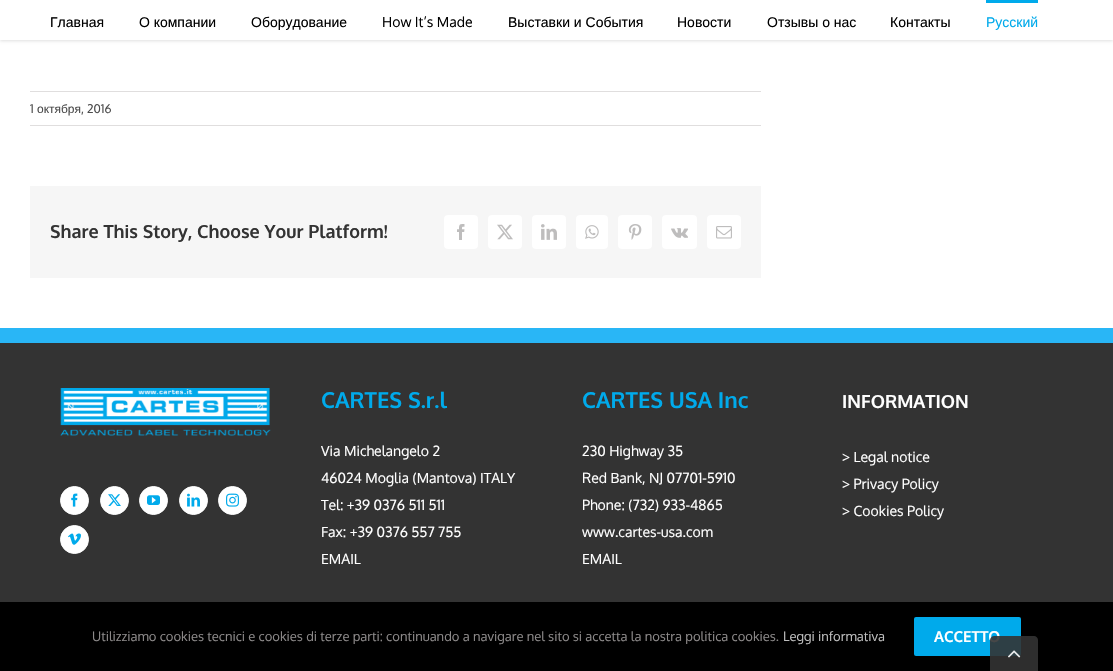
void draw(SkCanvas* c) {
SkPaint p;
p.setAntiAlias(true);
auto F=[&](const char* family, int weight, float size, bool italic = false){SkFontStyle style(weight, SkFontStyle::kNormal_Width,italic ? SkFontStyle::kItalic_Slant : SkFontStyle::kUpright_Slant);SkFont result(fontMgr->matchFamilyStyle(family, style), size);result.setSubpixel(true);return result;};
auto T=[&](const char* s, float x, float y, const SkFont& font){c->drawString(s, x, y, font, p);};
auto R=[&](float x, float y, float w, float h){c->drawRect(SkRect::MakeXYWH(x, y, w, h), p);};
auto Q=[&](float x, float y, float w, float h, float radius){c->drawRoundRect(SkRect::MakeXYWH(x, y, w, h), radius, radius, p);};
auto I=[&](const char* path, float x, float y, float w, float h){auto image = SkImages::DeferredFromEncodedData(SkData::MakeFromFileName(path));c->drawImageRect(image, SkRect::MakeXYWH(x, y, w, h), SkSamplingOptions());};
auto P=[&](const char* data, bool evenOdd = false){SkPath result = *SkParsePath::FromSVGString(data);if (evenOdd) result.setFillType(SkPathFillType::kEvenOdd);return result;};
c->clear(0xffffffff);
p.setColor(0x1f000000);
p.setMaskFilter(SkMaskFilter::MakeBlur(kNormal_SkBlurStyle, 1.5));
c->drawRect(SkRect::MakeXYWH(0,1,1113,40),p);
p.setMaskFilter(nullptr);
p.setColor(0xffffffff);
R(0,0,1113,40);
auto f1 = F("Liberation Sans",400,14);
p.setColor(0xff000000);
T("Главная",50,27,f1);
T("О компании",139,27,f1);
T("Оборудование",251,27,f1);
auto f2 = F("Oxygen",400,14);
T("How It’s Made",382,27,f2);
T("Выставки и События",508,27,f1);
T("Новости",677,27,f1);
T("Отзывы о нас",767,27,f1);
T("Контакты",890,27,f1);
p.setColor(0xff00aaeb);
R(986,0,52,3);
T("Русский",986,27,f1);
p.setColor(0xffe0dede);
R(30,91,731,1);
R(30,125,731,1);
auto f3 = F("Oxygen",400,12);
p.setColor(0xff4c4c4c);
T("1",30,113,f3);
auto f4 = F("Liberation Sans",400,12);
T("октября",37,113,f4);
T(", 2016",81,113,f3);
p.setColor(0xfff6f6f6);
R(30,186,731,92);
auto f5 = F("Oxygen",700,18);
p.setColor(0xff333333);
T("Share This Story, Choose Your Platform!",50,238,f5);
p.setColor(0xffffffff);
Q(444,215,34,34,4);
I("1.png",457,224,8,16);
Q(488,215,34,34,4);
I("2.png",497,224,16,16);
Q(532,215,34,34,4);
I("3.png",541,224,16,16);
Q(576,215,32,34,4);
I("4.png",585,225,14,14);
Q(618,215,34,34,4);
I("5.png",628,224,14,16);
Q(662,215,35,34,4);
I("6.png",671,228,17,10);
Q(707,215,34,34,4);
I("7.png",716,226,16,13);
p.setColor(0xff333333);
R(0,343,1113,259);
p.setColor(0xff29b6f6);
R(0,328,1113,15);
I("8.png",60,388,211,48);
p.setColor(0xffffffff);
c->drawCircle(74.5,500.5,14,p);
p.setStroke(true);
p.setStrokeWidth(1);
c->drawCircle(74.5,500.5,14,p);
I("9.png",71,493,7,14);
p.setStroke(false);
c->drawCircle(114.5,500.5,14,p);
p.setStroke(true);
c->drawCircle(114.5,500.5,14,p);
I("10.png",108,494,13,12);
p.setStroke(false);
c->drawCircle(153.5,500.5,14,p);
p.setStroke(true);
c->drawCircle(153.5,500.5,14,p);
I("11.png",147,495,13,10);
p.setStroke(false);
c->drawCircle(193.5,500.5,14,p);
p.setStroke(true);
c->drawCircle(193.5,500.5,14,p);
I("12.png",187,493,13,14);
p.setStroke(false);
c->drawCircle(232.5,500.5,14,p);
p.setStroke(true);
c->drawCircle(232.5,500.5,14,p);
I("13.png",226,493,13,14);
p.setStroke(false);
c->drawCircle(74.5,539.5,14,p);
p.setStroke(true);
c->drawCircle(74.5,539.5,14,p);
I("14.png",68,533,13,12);
auto f6 = F("Oxygen",700,22);
p.setStroke(false);
p.setColor(0xff00aaeb);
T("CARTES S.r.l",321,408,f6);
p.setColor(0xffffffff);
T("Via Michelangelo 2",321,456,f2);
T("46024 Moglia (Mantova) ITALY",321,483,f2);
T("Tel: +39 0376 511 511",321,510,f2);
T("Fax: +39 0376 557 755",321,537,f2);
T("EMAIL",321,564,f2);
p.setColor(0xff00aaeb);
T("CARTES USA Inc",582,408,f6);
p.setColor(0xffffffff);
T("230 Highway 35",582,456,f2);
T("Red Bank, NJ 07701-5910",582,483,f2);
T("Phone: (732) 933-4865",582,510,f2);
T("www.cartes-usa.com",582,537,f2);
T("EMAIL",582,564,f2);
T("INFORMATION",842,408,f5);
T("> Legal notice",842,462,f2);
T("> Privacy Policy",842,489,f2);
T("> Cookies Policy",842,516,f2);
p.setColor(0xff000000);
R(0,602,1113,69);
auto f7 = F("Oxygen",400,13);
p.setColor(0xff8c8989);
T("Utilizziamo cookies tecnici e cookies di terze parti: continuando a navigare nel sito si accetta la nostra politica cookies.",92,641,f7);
p.setColor(0xffbfbfbf);
T("Leggi informativa",783,641,f7);
p.setColor(0xff00aaeb);
Q(914,617,107,39,2);
auto f8 = F("Oxygen",700,15);
p.setColor(0xffffffff);
T("ACCETTO",934,642,f8);
p.setColor(0xe6333333);
c->drawPath(P("M994 636h40c2 0 4 2 4 4v31h-48v-31c0-2 2-4 4-4z"),p);
I("15.png",1008,650,13,8);
}
